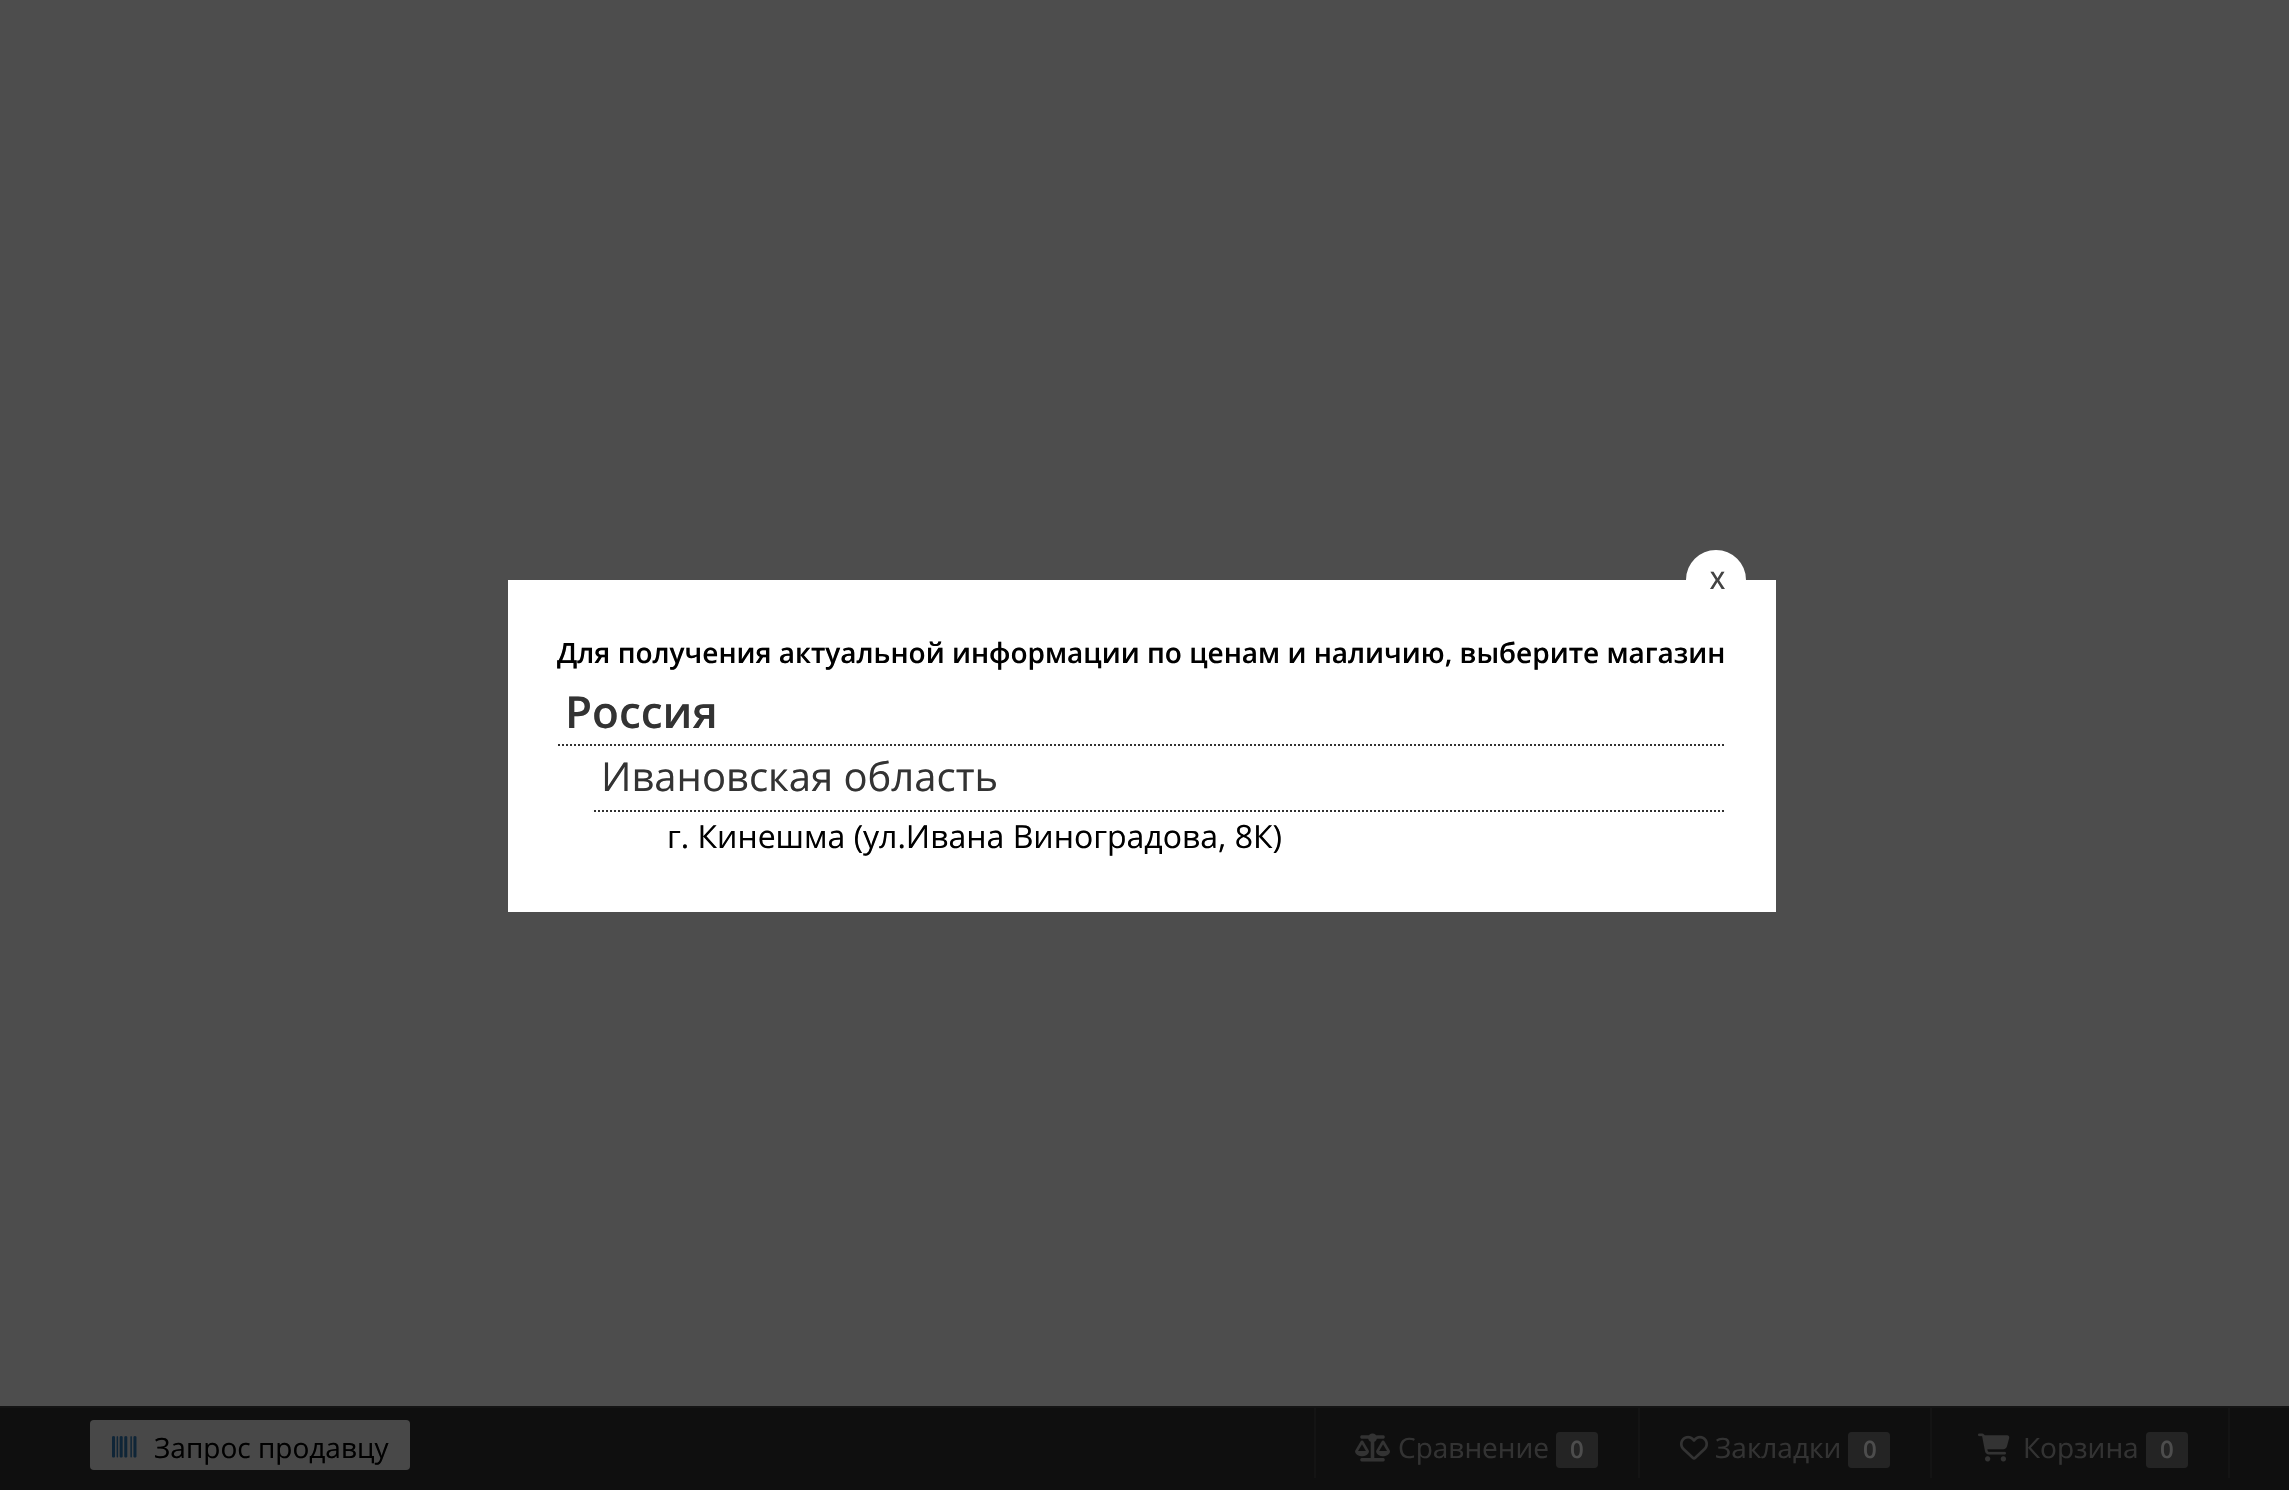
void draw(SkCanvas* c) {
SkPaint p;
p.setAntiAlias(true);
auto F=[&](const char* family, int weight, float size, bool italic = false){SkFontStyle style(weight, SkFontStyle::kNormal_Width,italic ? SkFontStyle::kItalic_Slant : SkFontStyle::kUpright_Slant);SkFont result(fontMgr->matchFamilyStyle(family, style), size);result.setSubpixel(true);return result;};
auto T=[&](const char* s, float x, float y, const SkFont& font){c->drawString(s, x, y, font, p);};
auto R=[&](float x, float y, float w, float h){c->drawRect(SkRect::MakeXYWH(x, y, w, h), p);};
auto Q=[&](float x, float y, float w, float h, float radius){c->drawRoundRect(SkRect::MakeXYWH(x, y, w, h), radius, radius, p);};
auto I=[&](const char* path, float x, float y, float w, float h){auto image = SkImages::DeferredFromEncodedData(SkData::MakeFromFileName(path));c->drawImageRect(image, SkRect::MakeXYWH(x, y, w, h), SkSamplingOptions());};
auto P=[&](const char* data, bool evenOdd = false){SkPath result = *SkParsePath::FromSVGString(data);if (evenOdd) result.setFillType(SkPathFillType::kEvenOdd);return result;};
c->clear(0xff4d4d4d);
p.setColor(0xffffffff);
R(508,580,1268,332);
c->drawCircle(1716,580,25,p);
p.setStroke(true);
p.setStrokeWidth(10);
c->drawCircle(1716,580,25,p);
auto f1 = F("Open Sans",600,24);
p.setStroke(false);
p.setColor(0xff444444);
T("X",1710,589,f1);
auto f2 = F("Open Sans",600,28);
p.setColor(0xff000000);
T("Для получения актуальной информации по ценам и наличию, выберите магазин",557,663,f2);
p.setStroke(true);
p.setStrokeWidth(2);
p.setColor(0xff313131);
p.setPathEffect(SkDashPathEffect::Make({{2,2}}, 0));
c->drawPath(P("M558 745h1168"),p);
p.setPathEffect(nullptr);
auto f3 = F("Open Sans",600,44);
p.setStroke(false);
p.setColor(0xff333333);
T("Россия",565,728,f3);
p.setStroke(true);
p.setColor(0xff313131);
p.setPathEffect(SkDashPathEffect::Make({{2,2}}, 0));
c->drawPath(P("M594 811h1132"),p);
p.setPathEffect(nullptr);
auto f4 = F("Open Sans",400,40);
p.setStroke(false);
p.setColor(0xff333333);
T("Ивановская область",601,791,f4);
auto f5 = F("Open Sans",400,32);
p.setColor(0xff000000);
T("г. Кинешма (ул.Ивана Виноградова, 8К)",667,848,f5);
p.setColor(0xff0f0f0f);
R(0,1408,2289,82);
p.setColor(0xff141414);
R(0,1406,2289,2);
p.setColor(0xff484848);
Q(90,1420,320,50,4);
I("1.png",112,1436,25,22);
auto f6 = F("Open Sans",400,28);
p.setColor(0xff000000);
T("Запрос продавцу",154,1458,f6);
p.setColor(0xff141414);
R(2228,1408,2,70);
R(1314,1408,2,70);
I("2.png",1355,1433,35,29);
p.setColor(0xff333333);
T("Сравнение",1398,1458,f6);
p.setColor(0xff242424);
Q(1556,1432,42,36,4);
p.setColor(0xff4d4d4d);
T("0",1570,1458,f1);
p.setColor(0xff141414);
R(1638,1408,2,70);
I("3.png",1680,1435,28,25);
p.setColor(0xff333333);
T("Закладки",1715,1458,f6);
p.setColor(0xff242424);
Q(1848,1432,42,36,4);
p.setColor(0xff4d4d4d);
T("0",1863,1458,f1);
p.setColor(0xff141414);
R(1930,1408,2,70);
I("4.png",1978,1433,32,29);
p.setColor(0xff333333);
T("Корзина",2023,1458,f6);
p.setColor(0xff242424);
Q(2146,1432,42,36,4);
p.setColor(0xff4d4d4d);
T("0",2160,1458,f1);
}
